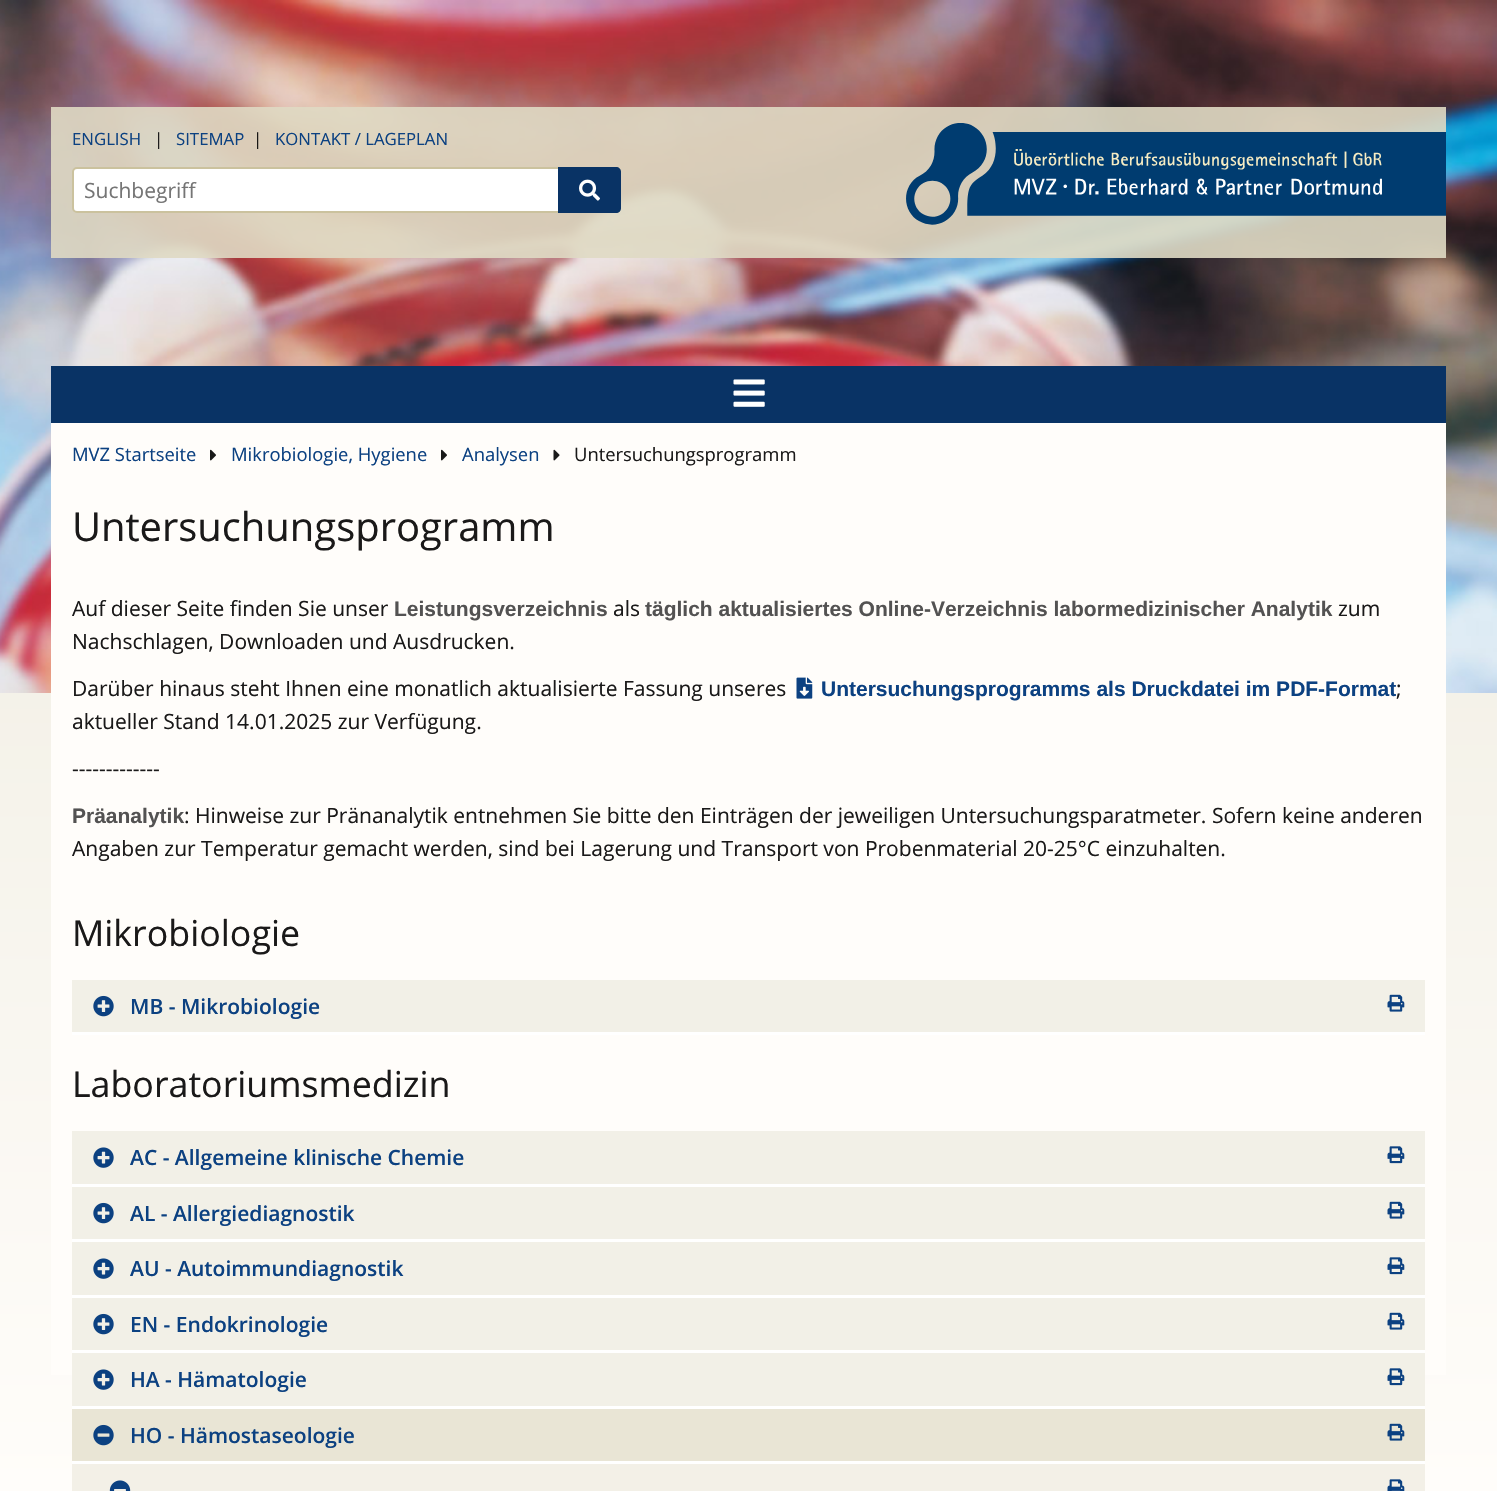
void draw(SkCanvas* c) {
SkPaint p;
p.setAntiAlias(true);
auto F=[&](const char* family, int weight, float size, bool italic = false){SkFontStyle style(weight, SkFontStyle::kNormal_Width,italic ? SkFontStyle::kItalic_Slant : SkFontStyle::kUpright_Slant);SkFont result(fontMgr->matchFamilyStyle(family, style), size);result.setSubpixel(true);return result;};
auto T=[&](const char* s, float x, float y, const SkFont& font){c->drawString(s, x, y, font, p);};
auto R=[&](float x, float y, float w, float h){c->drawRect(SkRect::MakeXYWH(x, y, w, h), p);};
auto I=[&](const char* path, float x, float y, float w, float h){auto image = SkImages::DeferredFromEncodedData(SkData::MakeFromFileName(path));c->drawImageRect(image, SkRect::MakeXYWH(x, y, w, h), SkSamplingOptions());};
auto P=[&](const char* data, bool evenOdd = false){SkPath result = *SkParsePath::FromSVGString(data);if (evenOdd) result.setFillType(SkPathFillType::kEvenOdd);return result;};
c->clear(0xffffffff);
{
const SkColor colors[] = {0xffebe8da,0xfffffdfa};
const float stops[] = {0,1};
const SkPoint ends[] = {{748,0}, {749,1491}};
p.setShader(SkGradientShader::MakeLinear(ends, colors, stops, 2, SkTileMode::kClamp));
p.setAlpha(255);
}
R(0,693,1497,798);
I("1.png",0,0,1497,693);
p.setShader(nullptr);
p.setColor(0xe6dfd9c3);
R(51,107,1395,151);
auto f1 = F("Open Sans",400,16.75);
p.setColor(0xff0c4181);
T("ENGLISH",72,145,f1);
p.setColor(0xff1a1919);
T("|",154,145,f1);
p.setColor(0xff0c4181);
T("SITEMAP",176,145,f1);
p.setColor(0xff161412);
T("|",253,145,f1);
p.setColor(0xff0c4181);
T("KONTAKT / LAGEPLAN",275,145,f1);
I("2.png",906,123,540,102);
p.setColor(0xffffffff);
c->drawRoundRect(SkRect::MakeXYWH(73,168,547,44),4,4,p);
p.setStroke(true);
p.setStrokeWidth(2);
p.setColor(0xffcbc29e);
c->drawRoundRect(SkRect::MakeXYWH(73,168,547,44),4,4,p);
auto f2 = F("Open Sans",400,21);
p.setStroke(false);
p.setColor(0xff757575);
T("Suchbegriff",84,198,f2);
p.setColor(0xff093365);
c->drawPath(P("M558 167h58c3 0 5 2 5 5v36c0 3-2 5-5 5h-58z"),p);
I("3.png",579,179,21,22);
p.setColor(0xfffffdfa);
R(51,423,1395,952);
p.setColor(0xff093365);
R(51,366,1395,57);
I("4.png",733,379,32,28);
auto f3 = F("Open Sans",400,18.4);
p.setColor(0xff0c4181);
T("MVZ Startseite",72,461,f3);
I("5.png",210,449,6,12);
T("Mikrobiologie, Hygiene",231,461,f3);
I("5.png",441,449,6,12);
T("Analysen",462,461,f3);
I("6.png",553,449,7,12);
p.setColor(0xff1a1919);
T("Untersuchungsprogramm",574,461,f3);
auto f4 = F("Open Sans",400,39.9);
T("Untersuchungsprogramm",72,541,f4);
T("Auf dieser Seite finden Sie unser",72,616,f2);
auto f5 = F("Liberation Sans",700,21);
p.setColor(0xff535252);
T("Leistungsverzeichnis",394,616,f5);
p.setColor(0xff1a1919);
T("als",613,616,f2);
p.setColor(0xff535252);
T("täglich aktualisiertes Online-Verzeichnis labormedizinischer Analytik",645,616,f5);
p.setColor(0xff1a1919);
T("zum",1338,616,f2);
T("Nachschlagen, Downloaden und Ausdrucken.",72,649,f2);
T("Darüber hinaus steht Ihnen eine monatlich aktualisierte Fassung unseres",72,696,f2);
I("7.png",796,677,17,22);
p.setColor(0xff0c4181);
T("Untersuchungsprogramms als Druckdatei im PDF-Format",821,696,f5);
p.setColor(0xff1a1919);
T(";",1396,696,f2);
T("aktueller Stand 14.01.2025 zur Verfügung.",72,729,f2);
T("-------------",72,776,f2);
p.setColor(0xff535252);
T("Präanalytik",72,823,f5);
p.setColor(0xff1a1919);
T(": Hinweise zur Pränanalytik entnehmen Sie bitte den Einträgen der jeweiligen Untersuchungsparatmeter. Sofern keine anderen",184,823,f2);
T("Angaben zur Temperatur gemacht werden, sind bei Lagerung und Transport von Probenmaterial 20-25°C einzuhalten.",72,856,f2);
auto f6 = F("Open Sans",400,35.75);
T("Mikrobiologie",72,946,f6);
p.setColor(0xfff2f0e7);
R(72,980,1353,52);
p.setColor(0xffffffff);
R(72,1032,1353,3);
I("8.png",93,995,21,22);
auto f7 = F("Open Sans",600,21);
p.setColor(0xff0c4181);
T("MB - Mikrobiologie",130,1014,f7);
I("9.png",1387,994,18,18);
p.setColor(0xff1a1919);
T("Laboratoriumsmedizin",72,1097,f6);
p.setColor(0xfff2f0e7);
R(72,1131,1353,53);
p.setColor(0xffffffff);
R(72,1184,1353,3);
I("10.png",93,1147,21,21);
p.setColor(0xff0c4181);
T("AC - Allgemeine klinische Chemie",130,1165,f7);
I("11.png",1387,1146,18,18);
p.setColor(0xfff2f0e7);
R(72,1187,1353,52);
p.setColor(0xffffffff);
R(72,1239,1353,3);
I("8.png",93,1202,21,22);
p.setColor(0xff0c4181);
T("AL - Allergiediagnostik",130,1221,f7);
I("9.png",1387,1201,18,18);
p.setColor(0xfff2f0e7);
R(72,1242,1353,53);
p.setColor(0xffffffff);
R(72,1295,1353,3);
I("10.png",93,1258,21,21);
p.setColor(0xff0c4181);
T("AU - Autoimmundiagnostik",130,1276,f7);
I("11.png",1387,1257,18,18);
p.setColor(0xfff2f0e7);
R(72,1298,1353,52);
p.setColor(0xffffffff);
R(72,1350,1353,3);
I("8.png",93,1313,21,22);
p.setColor(0xff0c4181);
T("EN - Endokrinologie",130,1332,f7);
I("9.png",1387,1312,18,18);
p.setColor(0xfff2f0e7);
R(72,1353,1353,53);
p.setColor(0xffffffff);
R(72,1406,1353,3);
I("10.png",93,1369,21,21);
p.setColor(0xff0c4181);
T("HA - Hämatologie",130,1387,f7);
I("11.png",1387,1368,18,18);
p.setColor(0xffe9e5d5);
R(72,1409,1353,52);
p.setColor(0xffffffff);
R(72,1461,1353,3);
I("12.png",93,1424,21,22);
p.setColor(0xff0c4181);
T("HO - Hämostaseologie",130,1443,f7);
I("13.png",1387,1423,18,18);
p.setColor(0xfff3f0e7);
R(72,1464,1353,27);
I("14.png",109,1480,22,11);
I("15.png",1387,1479,18,12);
}
